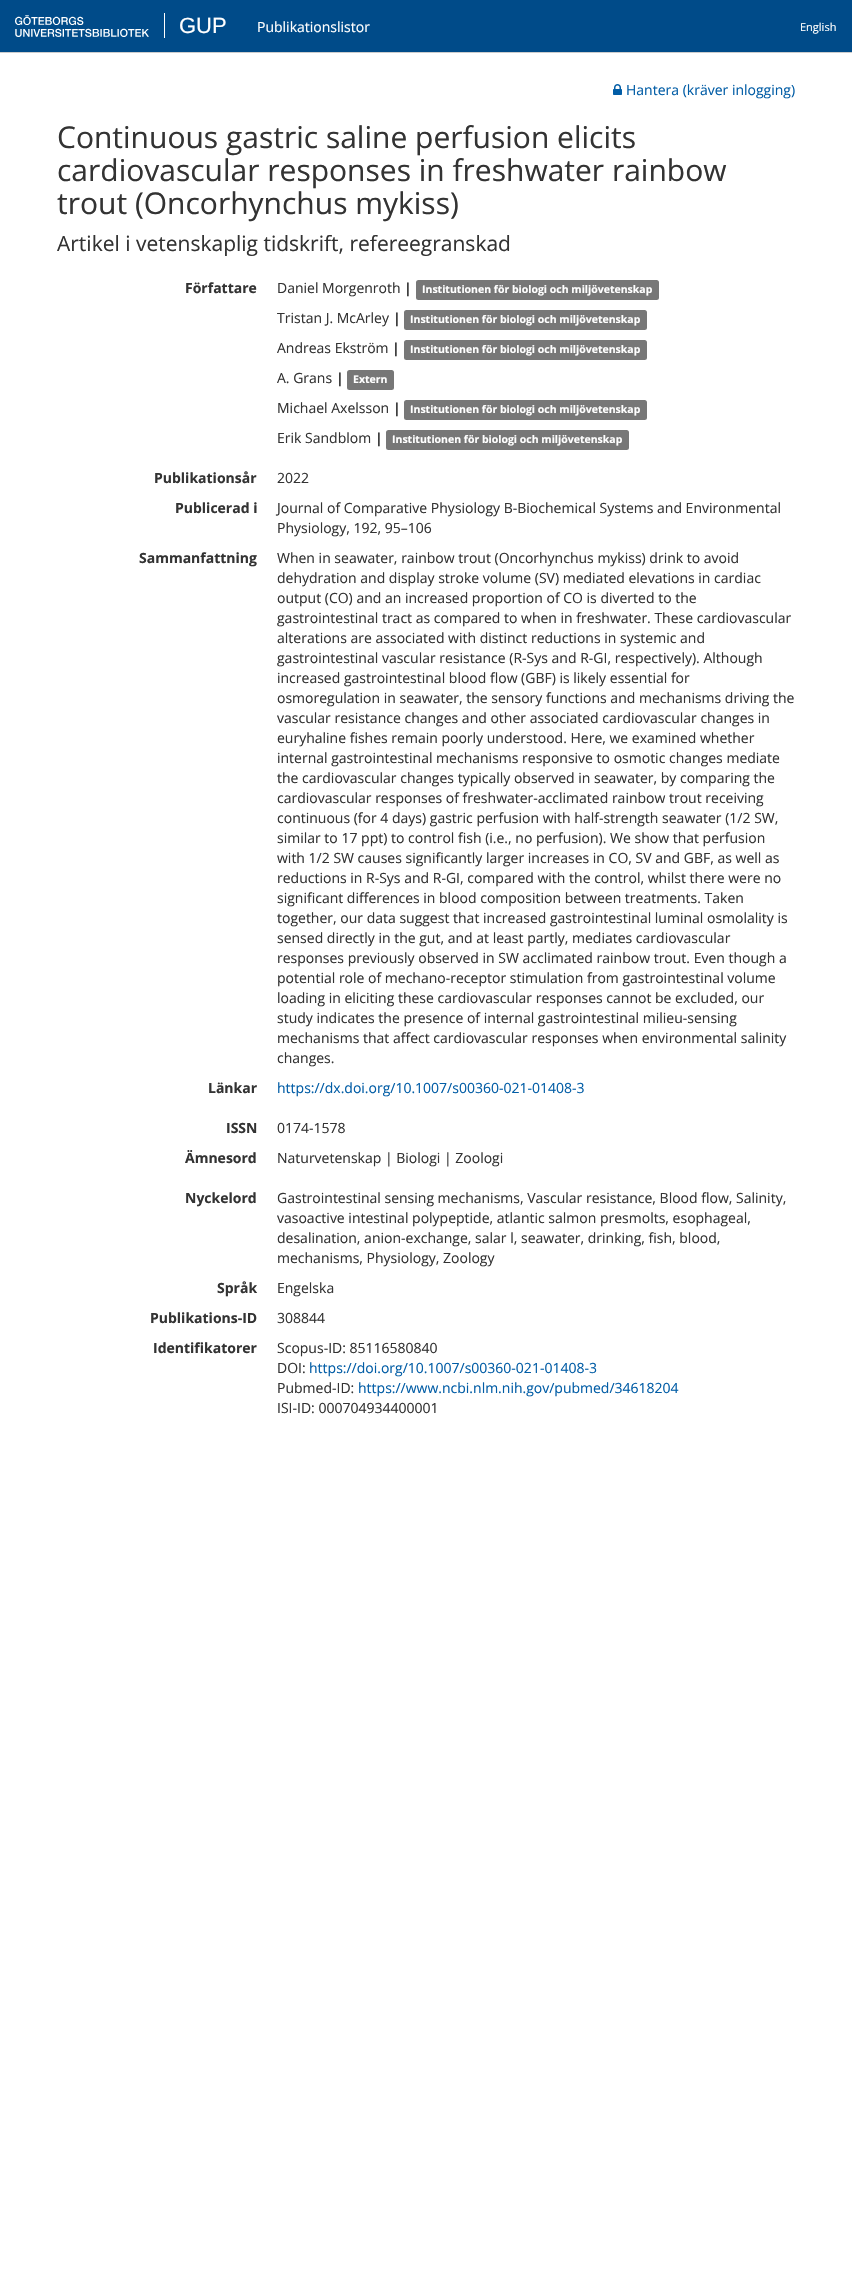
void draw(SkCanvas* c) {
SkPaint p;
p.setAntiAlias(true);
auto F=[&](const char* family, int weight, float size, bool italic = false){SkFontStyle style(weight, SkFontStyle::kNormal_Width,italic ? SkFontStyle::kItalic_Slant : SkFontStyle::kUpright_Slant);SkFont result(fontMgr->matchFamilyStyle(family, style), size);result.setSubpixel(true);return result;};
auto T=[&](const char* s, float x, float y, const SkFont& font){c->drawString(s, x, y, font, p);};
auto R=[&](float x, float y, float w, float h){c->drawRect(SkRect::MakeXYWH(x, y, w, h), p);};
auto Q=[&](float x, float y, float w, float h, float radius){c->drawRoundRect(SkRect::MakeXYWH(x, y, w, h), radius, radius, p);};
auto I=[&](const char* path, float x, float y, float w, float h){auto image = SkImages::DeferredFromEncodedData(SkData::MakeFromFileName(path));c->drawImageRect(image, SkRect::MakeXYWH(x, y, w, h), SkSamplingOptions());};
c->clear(0xffffffff);
p.setColor(0xff004b89);
R(0,0,852,52);
p.setColor(0xffcccccc);
R(0,52,852,1);
I("1.png",15,15,134,22);
p.setColor(0xffffffff);
R(164,13,1,25);
auto f1 = F("Liberation Sans",400,22);
T("GUP",179,33,f1);
auto f2 = F("Open Sans",400,14);
T("Publikationslistor",257,32,f2);
auto f3 = F("Open Sans",400,11);
T("English",800,31,f3);
I("2.png",613,84,9,11);
p.setColor(0xff025da6);
T("Hantera (kräver inlogging)",626,95,f2);
auto f4 = F("Open Sans",400,30);
p.setColor(0xff333333);
T("Continuous gastric saline perfusion elicits",57,148,f4);
T("cardiovascular responses in freshwater rainbow",57,181,f4);
T("trout (Oncorhynchus mykiss)",57,214,f4);
auto f5 = F("Open Sans",400,21);
T("Artikel i vetenskaplig tidskrift, refereegranskad",57,251,f5);
auto f6 = F("Open Sans",700,14);
T("Författare",185,293,f6);
T("Daniel Morgenroth",277,293,f2);
T("|",404,293,f6);
p.setColor(0xff777777);
Q(416,280,243,20,2.5);
auto f7 = F("Open Sans",700,10.5);
p.setColor(0xffffffff);
T("Institutionen för biologi och miljövetenskap",422,293,f7);
p.setColor(0xff333333);
T("Tristan J. McArley",277,323,f2);
T("|",393,323,f6);
p.setColor(0xff777777);
Q(404,310,243,20,2.5);
p.setColor(0xffffffff);
T("Institutionen för biologi och miljövetenskap",410,323,f7);
p.setColor(0xff333333);
T("Andreas Ekström",277,353,f2);
T("|",392,353,f6);
p.setColor(0xff777777);
Q(404,340,243,20,2.5);
p.setColor(0xffffffff);
T("Institutionen för biologi och miljövetenskap",410,353,f7);
p.setColor(0xff333333);
T("A. Grans",277,383,f2);
T("|",336,383,f6);
p.setColor(0xff777777);
Q(347,370,47,20,2.5);
p.setColor(0xffffffff);
T("Extern",353,383,f7);
p.setColor(0xff333333);
T("Michael Axelsson",277,413,f2);
T("|",393,413,f6);
p.setColor(0xff777777);
Q(404,400,243,20,2.5);
p.setColor(0xffffffff);
T("Institutionen för biologi och miljövetenskap",410,413,f7);
p.setColor(0xff333333);
T("Erik Sandblom",277,443,f2);
T("|",375,443,f6);
p.setColor(0xff777777);
Q(386,430,243,20,2.5);
p.setColor(0xffffffff);
T("Institutionen för biologi och miljövetenskap",392,443,f7);
p.setColor(0xff333333);
T("Publikationsår",154,483,f6);
T("2022",277,483,f2);
T("Publicerad i",175,513,f6);
T("Journal of Comparative Physiology B-Biochemical Systems and Environmental",277,513,f2);
T("Physiology, 192, 95–106",277,533,f2);
T("Sammanfattning",139,563,f6);
T("When in seawater, rainbow trout (Oncorhynchus mykiss) drink to avoid",277,563,f2);
T("dehydration and display stroke volume (SV) mediated elevations in cardiac",277,583,f2);
T("output (CO) and an increased proportion of CO is diverted to the",277,603,f2);
T("gastrointestinal tract as compared to when in freshwater. These cardiovascular",277,623,f2);
T("alterations are associated with distinct reductions in systemic and",277,643,f2);
T("gastrointestinal vascular resistance (R-Sys and R-GI, respectively). Although",277,663,f2);
T("increased gastrointestinal blood flow (GBF) is likely essential for",277,683,f2);
T("osmoregulation in seawater, the sensory functions and mechanisms driving the",277,703,f2);
T("vascular resistance changes and other associated cardiovascular changes in",277,723,f2);
T("euryhaline fishes remain poorly understood. Here, we examined whether",277,743,f2);
T("internal gastrointestinal mechanisms responsive to osmotic changes mediate",277,763,f2);
T("the cardiovascular changes typically observed in seawater, by comparing the",277,783,f2);
T("cardiovascular responses of freshwater-acclimated rainbow trout receiving",277,803,f2);
T("continuous (for 4 days) gastric perfusion with half-strength seawater (1/2 SW,",277,823,f2);
T("similar to 17 ppt) to control fish (i.e., no perfusion). We show that perfusion",277,843,f2);
T("with 1/2 SW causes significantly larger increases in CO, SV and GBF, as well as",277,863,f2);
T("reductions in R-Sys and R-GI, compared with the control, whilst there were no",277,883,f2);
T("significant differences in blood composition between treatments. Taken",277,903,f2);
T("together, our data suggest that increased gastrointestinal luminal osmolality is",277,923,f2);
T("sensed directly in the gut, and at least partly, mediates cardiovascular",277,943,f2);
T("responses previously observed in SW acclimated rainbow trout. Even though a",277,963,f2);
T("potential role of mechano-receptor stimulation from gastrointestinal volume",277,983,f2);
T("loading in eliciting these cardiovascular responses cannot be excluded, our",277,1003,f2);
T("study indicates the presence of internal gastrointestinal milieu-sensing",277,1023,f2);
T("mechanisms that affect cardiovascular responses when environmental salinity",277,1043,f2);
T("changes.",277,1063,f2);
T("Länkar",208,1093,f6);
p.setColor(0xff025da6);
T("https://dx.doi.org/10.1007/s00360-021-01408-3",277,1093,f2);
p.setColor(0xff333333);
T("ISSN",226,1133,f6);
T("0174-1578",277,1133,f2);
T("Ämnesord",185,1163,f6);
T("Naturvetenskap | Biologi | Zoologi",277,1163,f2);
T("Nyckelord",185,1203,f6);
T("Gastrointestinal sensing mechanisms, Vascular resistance, Blood flow, Salinity,",277,1203,f2);
T("vasoactive intestinal polypeptide, atlantic salmon presmolts, esophageal,",277,1223,f2);
T("desalination, anion-exchange, salar l, seawater, drinking, fish, blood,",277,1243,f2);
T("mechanisms, Physiology, Zoology",277,1263,f2);
T("Språk",217,1293,f6);
T("Engelska",277,1293,f2);
T("Publikations-ID",150,1323,f6);
T("308844",277,1323,f2);
T("Identifikatorer",153,1353,f6);
T("Scopus-ID: 85116580840",277,1353,f2);
T("DOI:",277,1373,f2);
p.setColor(0xff025da6);
T("https://doi.org/10.1007/s00360-021-01408-3",309,1373,f2);
p.setColor(0xff333333);
T("Pubmed-ID:",277,1393,f2);
p.setColor(0xff025da6);
T("https://www.ncbi.nlm.nih.gov/pubmed/34618204",358,1393,f2);
p.setColor(0xff333333);
T("ISI-ID: 000704934400001",277,1413,f2);
}
